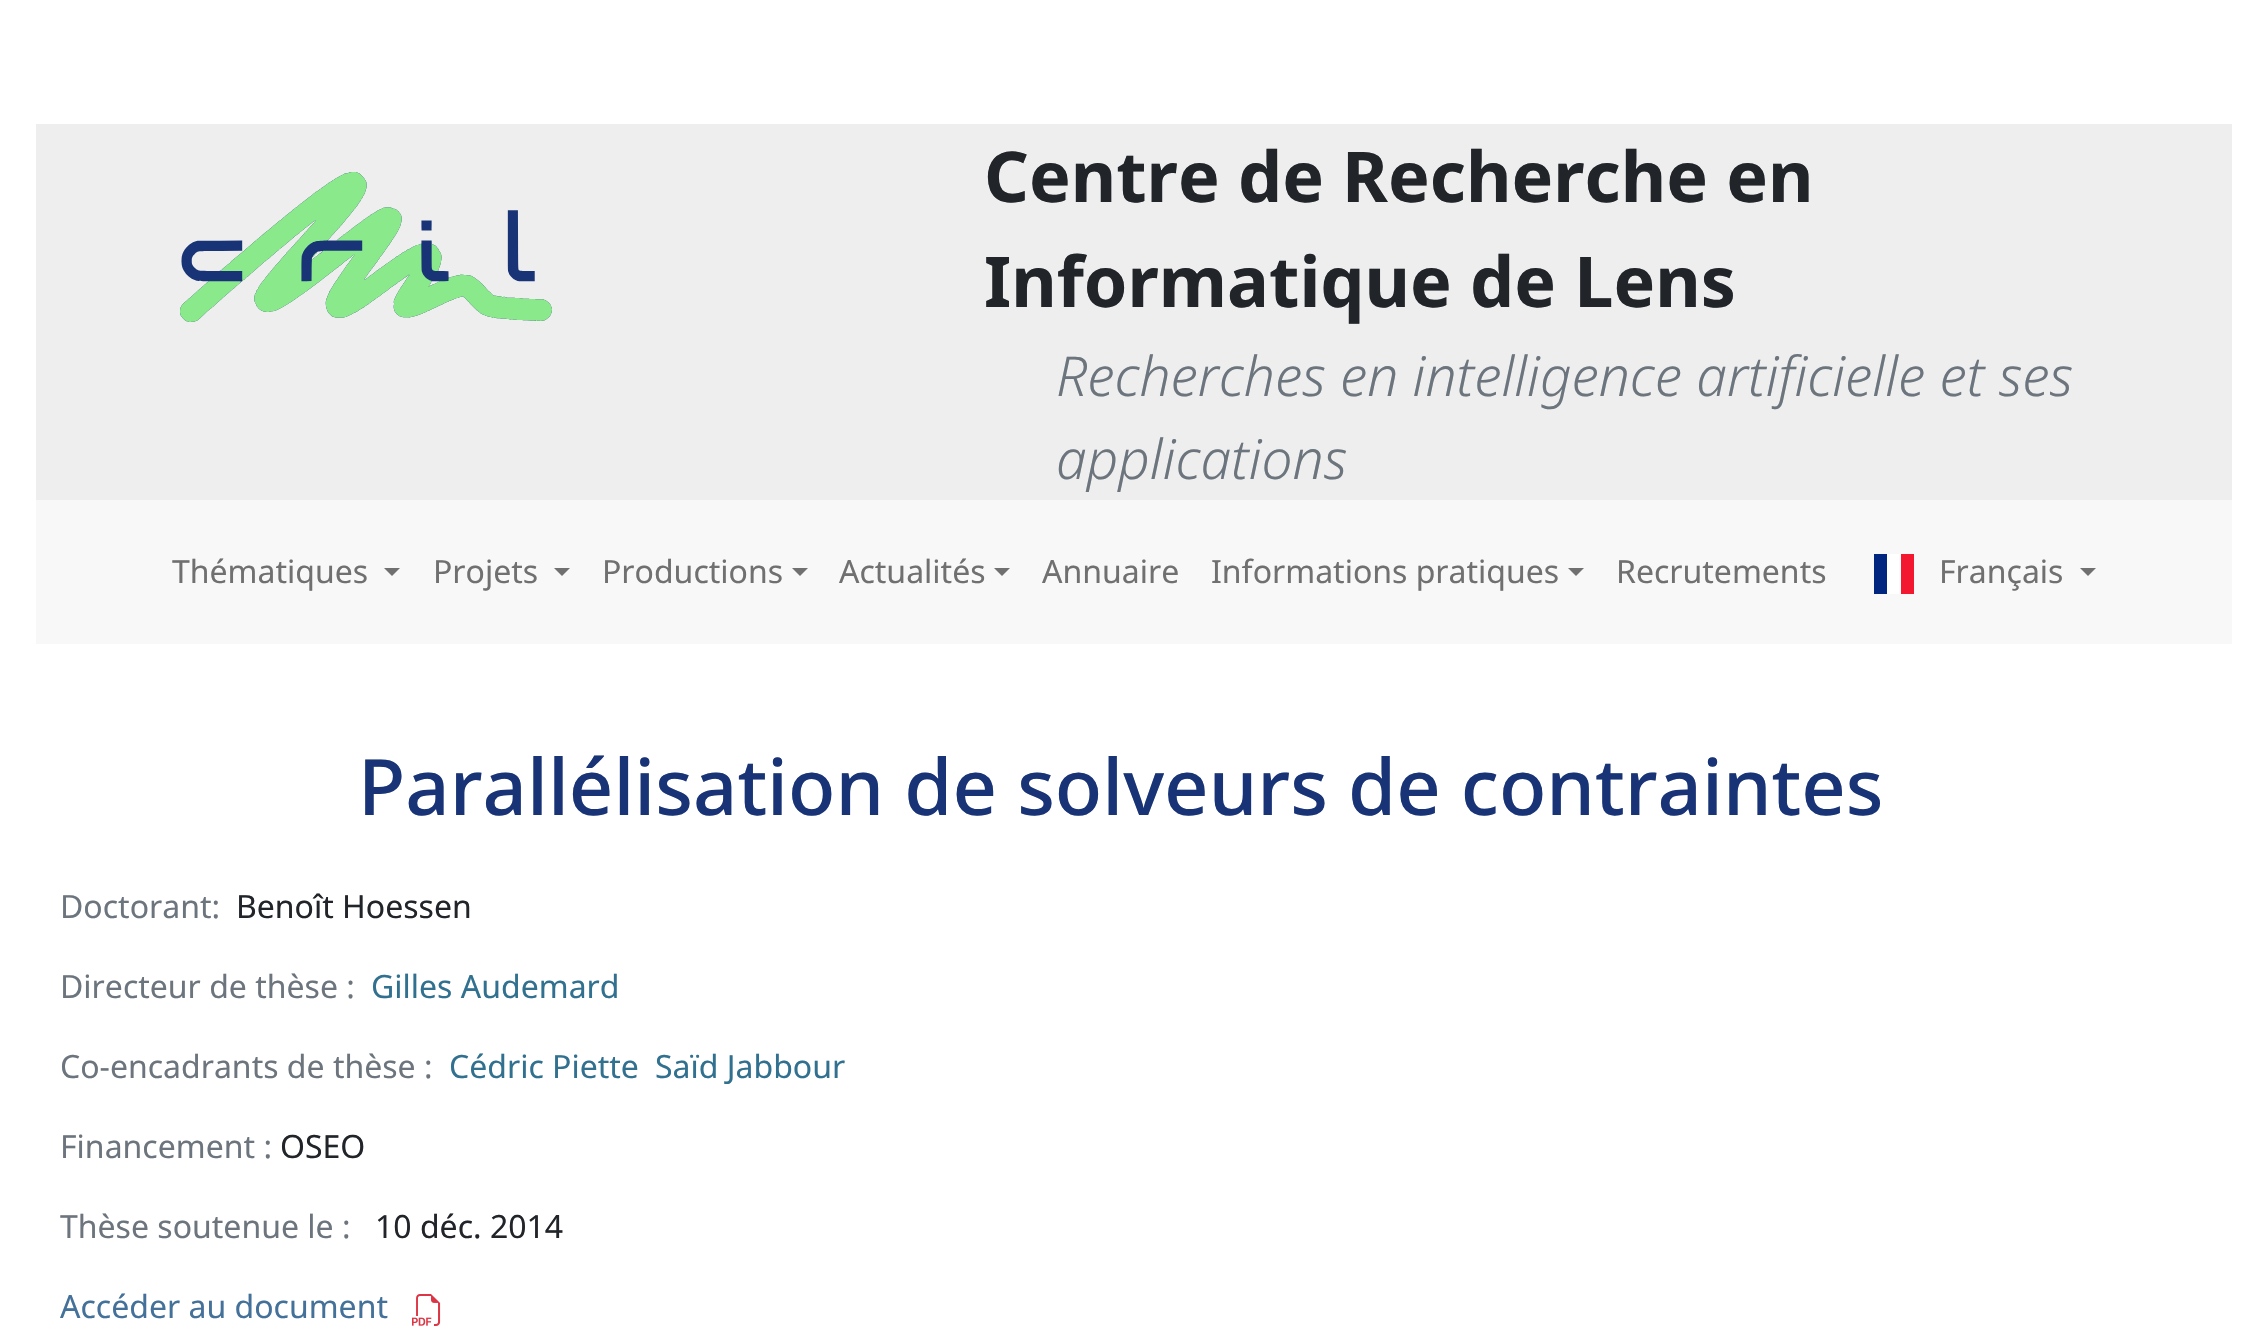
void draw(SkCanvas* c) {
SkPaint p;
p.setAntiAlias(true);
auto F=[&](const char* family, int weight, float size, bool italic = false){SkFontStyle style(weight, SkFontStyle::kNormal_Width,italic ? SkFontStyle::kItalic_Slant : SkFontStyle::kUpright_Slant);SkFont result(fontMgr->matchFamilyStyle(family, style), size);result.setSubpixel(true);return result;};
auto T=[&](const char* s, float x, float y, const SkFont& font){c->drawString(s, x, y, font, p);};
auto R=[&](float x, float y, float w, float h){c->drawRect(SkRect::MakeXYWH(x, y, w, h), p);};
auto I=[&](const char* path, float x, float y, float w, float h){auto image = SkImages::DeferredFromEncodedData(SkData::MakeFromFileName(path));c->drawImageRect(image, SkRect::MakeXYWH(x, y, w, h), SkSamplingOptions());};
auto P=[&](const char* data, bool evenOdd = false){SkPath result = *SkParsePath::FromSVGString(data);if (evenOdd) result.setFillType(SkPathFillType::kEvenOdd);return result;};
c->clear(0xffffffff);
p.setColor(0xffeeeeee);
R(36,124,2196,376);
I("1.png",180,172,372,150);
auto f1 = F("Noto Sans",700,70);
p.setColor(0xff212529);
T("Centre de Recherche en",984,202,f1);
T("Informatique de Lens",984,307,f1);
auto f2 = F("Noto Sans",300,55,true);
p.setColor(0xff6c757d);
T("Recherches en intelligence artificielle et ses",1056,396,f2);
T("applications",1056,479,f2);
p.setColor(0xfff8f8f8);
R(36,500,2196,144);
auto f3 = F("Noto Sans",400,32);
p.setColor(0xff707070);
T("Thématiques",172,583,f3);
c->drawPath(P("M384 568h16l-8 8z"),p);
T("Projets",433,583,f3);
c->drawPath(P("M554 568h16l-8 8z"),p);
T("Productions",602,583,f3);
c->drawPath(P("M792 568h16l-8 8z"),p);
T("Actualités",839,583,f3);
c->drawPath(P("M994 568h16l-8 8z"),p);
T("Annuaire",1042,583,f3);
T("Informations pratiques",1211,583,f3);
c->drawPath(P("M1568 568h16l-8 8z"),p);
T("Recrutements",1616,583,f3);
p.setColor(0xff00267f);
R(1874,554,13,40);
p.setColor(0xffffffff);
R(1887,554,14,40);
p.setColor(0xfff31830);
R(1901,554,13,40);
p.setColor(0xff707070);
T("Français",1939,583,f3);
c->drawPath(P("M2080 568h16l-8 8z"),p);
auto f4 = F("Noto Sans",500,77.6);
p.setColor(0xff193476);
T("Parallélisation de solveurs de contraintes",358,815,f4);
p.setColor(0xff6c757d);
T("Doctorant:",60,918,f3);
p.setColor(0xff212529);
T("Benoît Hoessen",236,918,f3);
p.setColor(0xff6c757d);
T("Directeur de thèse :",60,998,f3);
p.setColor(0xff31708f);
T("Gilles Audemard",371,998,f3);
p.setColor(0xff6c757d);
T("Co-encadrants de thèse :",60,1078,f3);
p.setColor(0xff31708f);
T("Cédric Piette",449,1078,f3);
T("Saïd Jabbour",655,1078,f3);
p.setColor(0xff6c757d);
T("Financement :",60,1158,f3);
p.setColor(0xff212529);
T("OSEO",280,1158,f3);
p.setColor(0xff6c757d);
T("Thèse soutenue le :",60,1238,f3);
p.setColor(0xff212529);
T("10 déc. 2014",375,1238,f3);
p.setColor(0xff447199);
T("Accéder au document",60,1318,f3);
I("2.png",412,1294,29,32);
}
